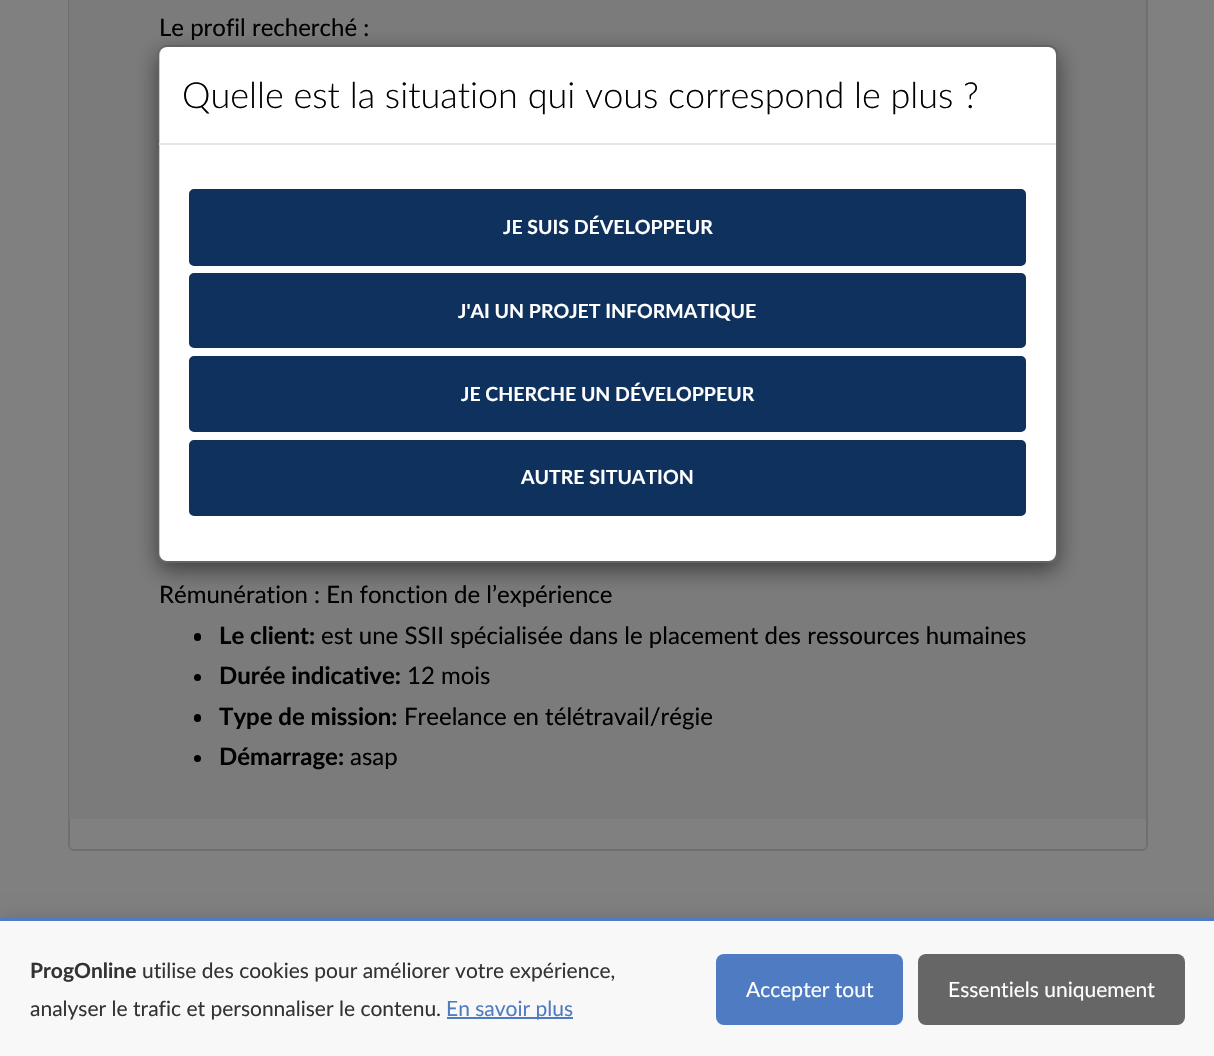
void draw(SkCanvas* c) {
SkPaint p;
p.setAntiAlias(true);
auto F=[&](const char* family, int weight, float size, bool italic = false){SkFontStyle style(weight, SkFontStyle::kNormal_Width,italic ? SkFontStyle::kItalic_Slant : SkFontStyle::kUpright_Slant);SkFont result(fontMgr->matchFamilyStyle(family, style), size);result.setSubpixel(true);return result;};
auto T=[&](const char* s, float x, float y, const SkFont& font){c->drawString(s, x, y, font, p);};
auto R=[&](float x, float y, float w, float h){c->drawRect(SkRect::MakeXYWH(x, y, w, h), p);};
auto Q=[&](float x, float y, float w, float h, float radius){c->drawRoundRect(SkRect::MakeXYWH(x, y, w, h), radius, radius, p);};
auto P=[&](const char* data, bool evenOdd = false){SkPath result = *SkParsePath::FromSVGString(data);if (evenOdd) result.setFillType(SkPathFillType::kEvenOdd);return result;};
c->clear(0xff808080);
p.setStroke(true);
p.setStrokeWidth(2);
p.setColor(0xff6f6f6f);
c->drawRoundRect(SkRect::MakeXYWH(69,-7,1078,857),5,5,p);
p.setStroke(false);
p.setColor(0xff7b7b7b);
R(69,0,1077,819);
auto f1 = F("Lato",400,24);
p.setColor(0xff000000);
T("Le profil recherché :",159,36,f1);
T("Rémunération : En fonction de l’expérience",159,603,f1);
Q(194,633,7,8,3.5);
auto f2 = F("Lato",700,24);
T("Le client:",219,644,f2);
T("est une SSII spécialisée dans le placement des ressources humaines",321,644,f1);
c->drawCircle(197.5,677.5,3.5,p);
T("Durée indicative:",219,684,f2);
T("12 mois",407,684,f1);
Q(194,714,7,8,3.5);
T("Type de mission:",219,725,f2);
T("Freelance en télétravail/régie",404,725,f1);
c->drawCircle(197.5,758.5,3.5,p);
T("Démarrage:",219,765,f2);
T("asap",350,765,f1);
c->save();
c->clipPath(P("M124 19h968v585h-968zm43 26h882c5 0 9 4 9 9v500c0 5-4 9-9 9h-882c-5 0-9-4-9-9v-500c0-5 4-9 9-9z",true),true);
p.setColor(0x80000000);
p.setMaskFilter(SkMaskFilter::MakeBlur(kNormal_SkBlurStyle, 11));
c->drawRoundRect(SkRect::MakeXYWH(158,53,900,517),9,9,p);
p.setMaskFilter(nullptr);
c->restore();
p.setColor(0xffffffff);
Q(159,47,897,514,8);
p.setStroke(true);
p.setColor(0x33000000);
c->drawRoundRect(SkRect::MakeXYWH(159,46,898,516),8,8,p);
p.setStroke(false);
p.setColor(0xffe5e5e5);
R(159,143,897,2);
auto f3 = F("Lato",300,36);
p.setColor(0xff000000);
T("Quelle est la situation qui vous correspond le plus ?",182,108,f3);
p.setColor(0xff0f315e);
c->drawRoundRect(SkRect::MakeXYWH(190,190,835,75),4,4,p);
p.setStroke(true);
c->drawRoundRect(SkRect::MakeXYWH(190,190,835,75),4,4,p);
auto f4 = F("Lato",700,19.5);
p.setStroke(false);
p.setColor(0xffffffff);
T("JE SUIS DÉVELOPPEUR",503,234,f4);
p.setColor(0xff0f315e);
c->drawRoundRect(SkRect::MakeXYWH(190,274,835,73),4,4,p);
p.setStroke(true);
c->drawRoundRect(SkRect::MakeXYWH(190,274,835,73),4,4,p);
p.setStroke(false);
p.setColor(0xffffffff);
T("J'AI UN PROJET INFORMATIQUE",458,318,f4);
p.setColor(0xff0f315e);
c->drawRoundRect(SkRect::MakeXYWH(190,357,835,74),4,4,p);
p.setStroke(true);
c->drawRoundRect(SkRect::MakeXYWH(190,357,835,74),4,4,p);
p.setStroke(false);
p.setColor(0xffffffff);
T("JE CHERCHE UN DÉVELOPPEUR",461,401,f4);
p.setColor(0xff0f315e);
c->drawRoundRect(SkRect::MakeXYWH(190,441,835,74),4,4,p);
p.setStroke(true);
c->drawRoundRect(SkRect::MakeXYWH(190,441,835,74),4,4,p);
p.setStroke(false);
p.setColor(0xffffffff);
T("AUTRE SITUATION",521,484,f4);
p.setColor(0x1a000000);
p.setMaskFilter(SkMaskFilter::MakeBlur(kNormal_SkBlurStyle, 7.5));
c->drawRect(SkRect::MakeXYWH(0,915,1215,138),p);
p.setMaskFilter(nullptr);
p.setColor(0xfff8f8f8);
R(0,921,1214,135);
p.setColor(0xff4f7bc2);
R(0,918,1214,3);
auto f5 = F("Lato",700,21);
p.setColor(0xff333333);
T("ProgOnline",30,978,f5);
auto f6 = F("Lato",400,21);
T("utilise des cookies pour améliorer votre expérience,",142,978,f6);
T("analyser le trafic et personnaliser le contenu.",30,1016,f6);
p.setColor(0xff4f7bc2);
R(447,1017,126,2);
T("En savoir plus",446,1016,f6);
Q(716,954,187,71,8);
p.setColor(0xffffffff);
T("Accepter tout",746,997,f6);
p.setColor(0xff666666);
Q(918,954,267,71,8);
p.setColor(0xffffffff);
T("Essentiels uniquement",948,997,f6);
}
